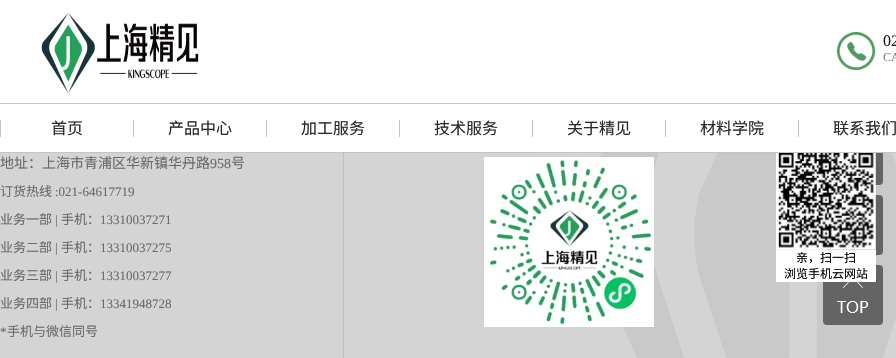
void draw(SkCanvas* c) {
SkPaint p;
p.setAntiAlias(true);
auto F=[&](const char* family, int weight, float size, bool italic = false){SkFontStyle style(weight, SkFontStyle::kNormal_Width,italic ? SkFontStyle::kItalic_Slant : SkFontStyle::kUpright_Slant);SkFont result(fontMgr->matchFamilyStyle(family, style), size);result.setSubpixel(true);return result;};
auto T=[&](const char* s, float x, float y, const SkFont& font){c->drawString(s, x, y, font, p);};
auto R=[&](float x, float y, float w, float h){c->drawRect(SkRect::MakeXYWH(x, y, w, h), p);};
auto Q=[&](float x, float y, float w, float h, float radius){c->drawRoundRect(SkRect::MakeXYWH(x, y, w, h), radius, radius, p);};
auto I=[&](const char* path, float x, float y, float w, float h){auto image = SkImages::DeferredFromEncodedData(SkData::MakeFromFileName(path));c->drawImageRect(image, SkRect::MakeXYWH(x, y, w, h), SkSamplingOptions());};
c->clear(0xffffffff);
I("3.png",0,153,896,205);
p.setColor(0x80000000);
Q(823,125,60,60,4);
p.setColor(0xffffffff);
R(823,125,60,27);
p.setColor(0xffc4c4c4);
R(0,152,896,1);
I("1.png",41,13,158,80);
I("2.png",837,32,38,38);
auto f1 = F("Liberation Serif",400,16);
p.setColor(0xff181616);
T("02",883,46,f1);
auto f2 = F("Liberation Serif",400,12);
p.setColor(0xff828282);
T("CA",883,61,f2);
p.setColor(0xffc4c4c4);
R(0,103,896,1);
R(133,120,1,17);
R(0,120,1,17);
auto f3 = F("Noto Sans CJK SC",400,16);
p.setColor(0xff282828);
T("首页",51,134,f3);
p.setColor(0xffc4c4c4);
R(266,120,1,17);
p.setColor(0xff282828);
T("产品中心",168,134,f3);
p.setColor(0xffc4c4c4);
R(399,120,1,17);
p.setColor(0xff282828);
T("加工服务",301,134,f3);
p.setColor(0xffc4c4c4);
R(532,120,1,17);
p.setColor(0xff282828);
T("技术服务",434,134,f3);
p.setColor(0xffc4c4c4);
R(665,120,1,17);
p.setColor(0xff282828);
T("关于精见",567,134,f3);
p.setColor(0xffc4c4c4);
R(798,120,1,17);
p.setColor(0xff282828);
T("材料学院",700,134,f3);
T("联系我们",833,134,f3);
p.setColor(0xffbebebe);
R(343,153,1,205);
auto f4 = F("Noto Sans CJK SC",400,14);
p.setColor(0xff696969);
T("地址：上海市青浦区华新镇华丹路",0,168,f4);
auto f5 = F("Liberation Serif",400,14);
T("958",210,168,f5);
T("号",231,168,f4);
auto f6 = F("Noto Sans CJK SC",400,13);
T("订货热线",0,196,f6);
auto f7 = F("Liberation Serif",400,13);
T(":021-64617719",55,196,f7);
T("业务一部",0,224,f6);
T("|",55,224,f7);
T("手机：",61,224,f6);
T("13310037271",100,224,f7);
T("业务二部",0,252,f6);
T("|",55,252,f7);
T("手机：",61,252,f6);
T("13310037275",100,252,f7);
T("业务三部",0,280,f6);
T("|",55,280,f7);
T("手机：",61,280,f6);
T("13310037277",100,280,f7);
T("业务四部",0,308,f6);
T("|",55,308,f7);
T("手机：",61,308,f6);
T("13341948728",100,308,f7);
T("*",0,336,f7);
T("手机与微信同号",7,336,f6);
I("4.png",484,157,170,170);
p.setColor(0x80000000);
Q(823,195,60,60,4);
Q(823,265,60,60,4);
I("5.png",837,282,31,31);
I("6.png",776,153,100,97);
p.setColor(0xffffffff);
R(776,250,100,32);
auto f8 = F("Noto Sans CJK SC",400,12);
p.setColor(0xff000000);
T("亲，扫一扫",796,262,f8);
T("浏览手机云网站",784,278,f8);
}
